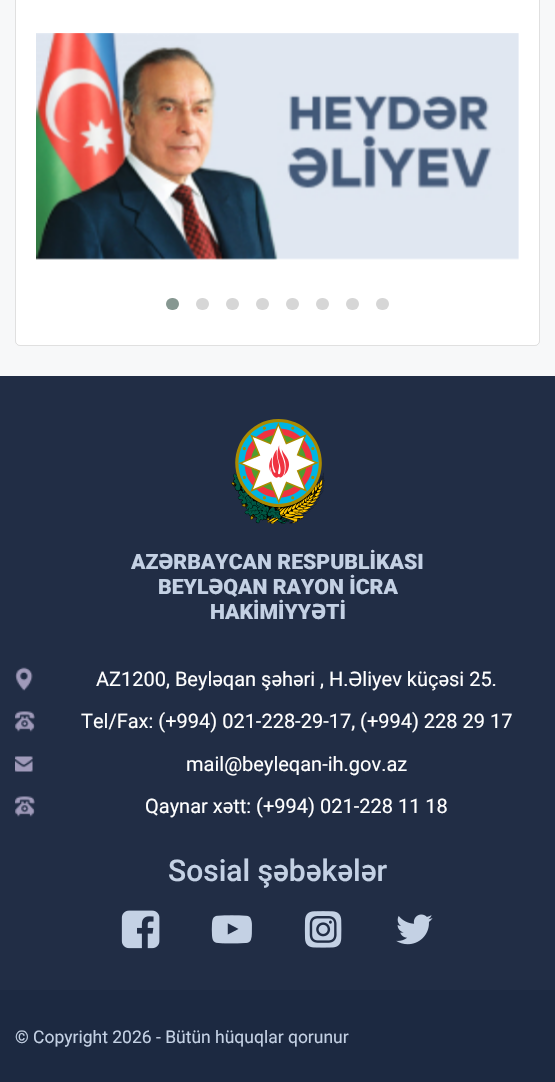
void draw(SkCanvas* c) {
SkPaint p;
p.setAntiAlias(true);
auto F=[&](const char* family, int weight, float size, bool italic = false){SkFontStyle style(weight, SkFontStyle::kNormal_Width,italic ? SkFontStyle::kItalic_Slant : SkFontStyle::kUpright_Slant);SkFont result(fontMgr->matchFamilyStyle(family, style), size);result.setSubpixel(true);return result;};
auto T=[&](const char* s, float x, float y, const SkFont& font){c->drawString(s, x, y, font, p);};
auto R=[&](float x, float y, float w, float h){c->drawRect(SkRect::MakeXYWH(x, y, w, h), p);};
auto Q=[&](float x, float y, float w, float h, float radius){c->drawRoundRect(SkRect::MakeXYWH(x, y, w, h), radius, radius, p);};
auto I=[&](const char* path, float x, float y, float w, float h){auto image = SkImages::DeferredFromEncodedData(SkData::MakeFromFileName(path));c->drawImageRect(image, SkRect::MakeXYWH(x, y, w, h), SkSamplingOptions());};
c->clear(0xfff7f8f9);
p.setColor(0xffffffff);
Q(15,-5,525,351,5);
p.setStroke(true);
p.setStrokeWidth(1);
p.setColor(0x1f000000);
c->drawRoundRect(SkRect::MakeXYWH(15.5,-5.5,524,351),4.5,4.5,p);
I("1.png",36,33,483,227);
p.setStroke(false);
p.setColor(0xff869791);
Q(166,298,13,12,6);
p.setColor(0xffd6d6d6);
Q(196,298,13,12,6);
Q(226,298,13,12,6);
Q(256,298,13,12,6);
Q(286,298,13,12,6);
Q(316,298,13,12,6);
Q(346,298,13,12,6);
Q(376,298,13,12,6);
p.setColor(0xff212d45);
R(0,376,555,614);
I("2.png",231,419,94,105);
auto f1 = F("Roboto",900,21.25);
p.setColor(0xffc4d1e4);
T("AZƏRBAYCAN RESPUBLİKASI",131,569,f1);
T("BEYLƏQAN RAYON İCRA",158,594,f1);
T("HAKİMİYYƏTİ",210,619,f1);
I("3.png",15,667,18,24);
auto f2 = F("Roboto",400,20);
p.setColor(0xffffffff);
T("AZ1200, Beyləqan şəhəri , H.Əliyev küçəsi 25.",96,686,f2);
I("4.png",15,711,20,21);
T("Tel/Fax: (+994) 021-228-29-17, (+994) 228 29 17",81,728,f2);
I("5.png",15,756,18,16);
T("mail@beyleqan-ih.gov.az",186,771,f2);
I("4.png",15,796,20,21);
T("Qaynar xətt: (+994) 021-228 11 18",145,813,f2);
auto f3 = F("Roboto",500,30);
p.setColor(0xffc4d1e4);
T("Sosial şəbəkələr",168,881,f3);
I("6.png",121,910,39,39);
I("7.png",211,915,41,29);
I("8.png",304,911,38,37);
I("9.png",396,914,37,31);
p.setColor(0xff1c2941);
R(0,990,555,92);
auto f4 = F("Roboto",400,17.5);
p.setColor(0xffc4d1e4);
T("© Copyright 2026 - Bütün hüquqlar qorunur",15,1043,f4);
}
